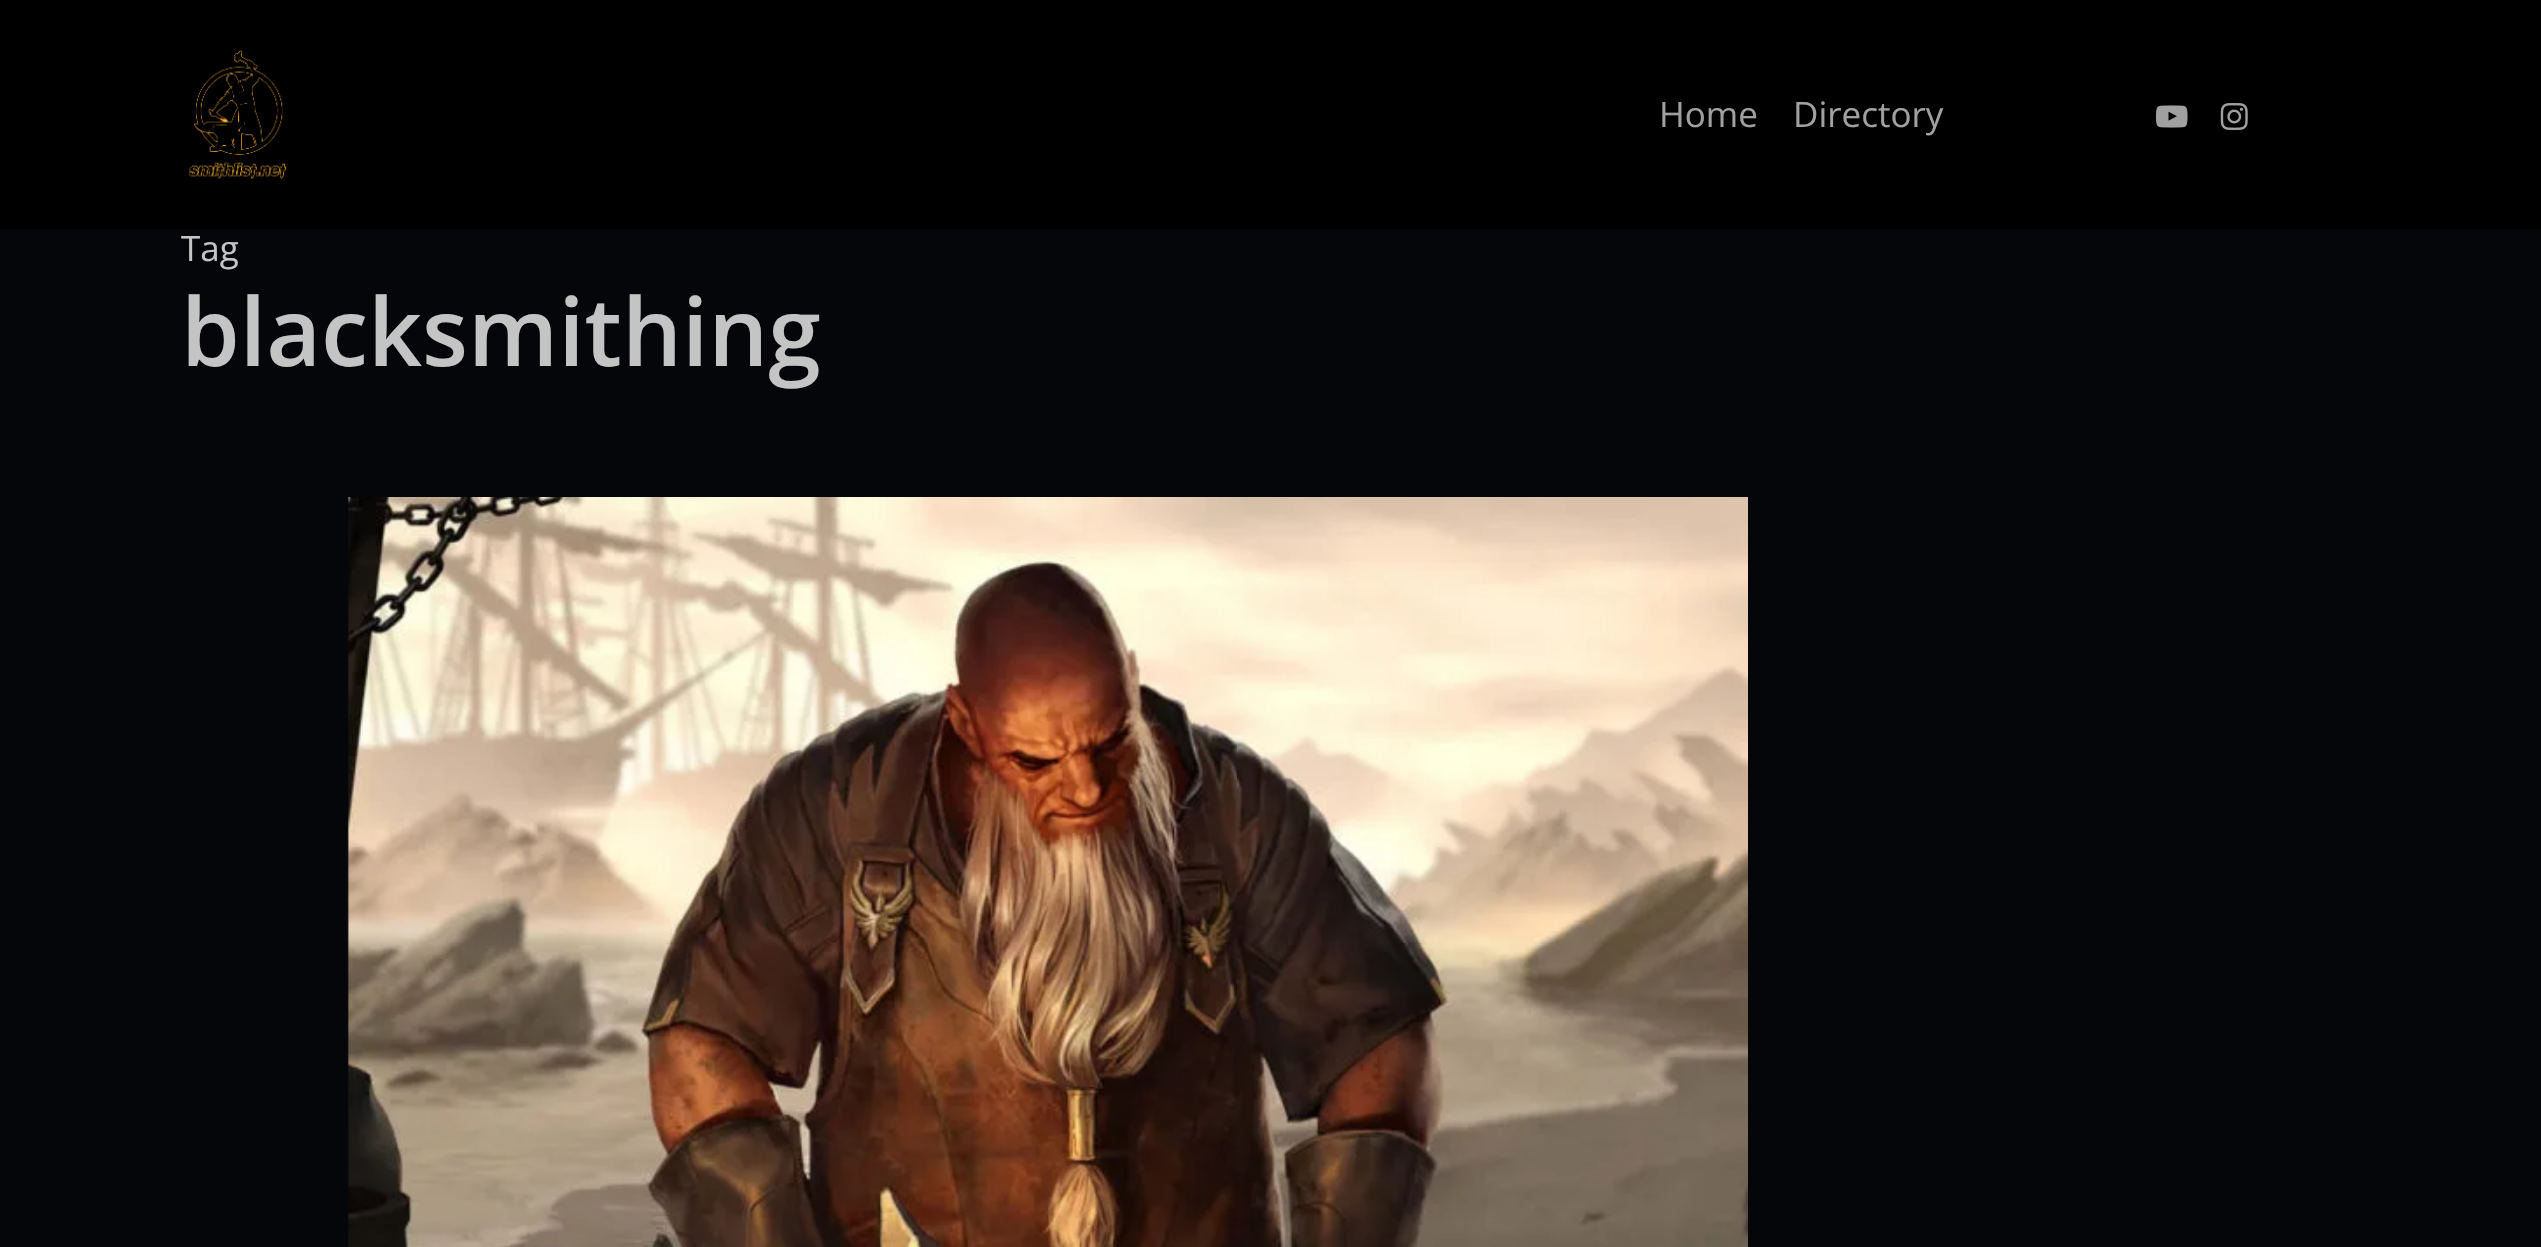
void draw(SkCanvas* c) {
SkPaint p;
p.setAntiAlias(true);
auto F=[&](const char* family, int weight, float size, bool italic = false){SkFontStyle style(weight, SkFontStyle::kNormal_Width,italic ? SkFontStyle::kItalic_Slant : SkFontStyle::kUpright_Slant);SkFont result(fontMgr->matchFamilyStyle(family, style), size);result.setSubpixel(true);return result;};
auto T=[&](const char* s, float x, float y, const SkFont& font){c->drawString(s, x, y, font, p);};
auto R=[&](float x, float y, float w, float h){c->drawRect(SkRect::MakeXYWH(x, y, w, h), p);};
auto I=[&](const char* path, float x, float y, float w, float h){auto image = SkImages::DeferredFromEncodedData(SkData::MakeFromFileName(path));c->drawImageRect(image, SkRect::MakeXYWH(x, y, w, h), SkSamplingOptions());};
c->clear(0xff04060a);
p.setColor(0xff000000);
R(0,0,2541,229);
I("1.png",188,50,99,129);
auto f1 = F("Open Sans",400,35);
p.setColor(0xffa0a0a0);
T("Home",1659,127,f1);
T("Directory",1793,127,f1);
I("2.png",2156,105,32,23);
I("3.png",2220,103,28,27);
p.setColor(0xffc4c4c4);
T("Tag",181,261,f1);
auto f2 = F("Open Sans",600,94.5);
T("blacksmithing",181,366,f2);
I("4.png",347,497,1401,750);
}
